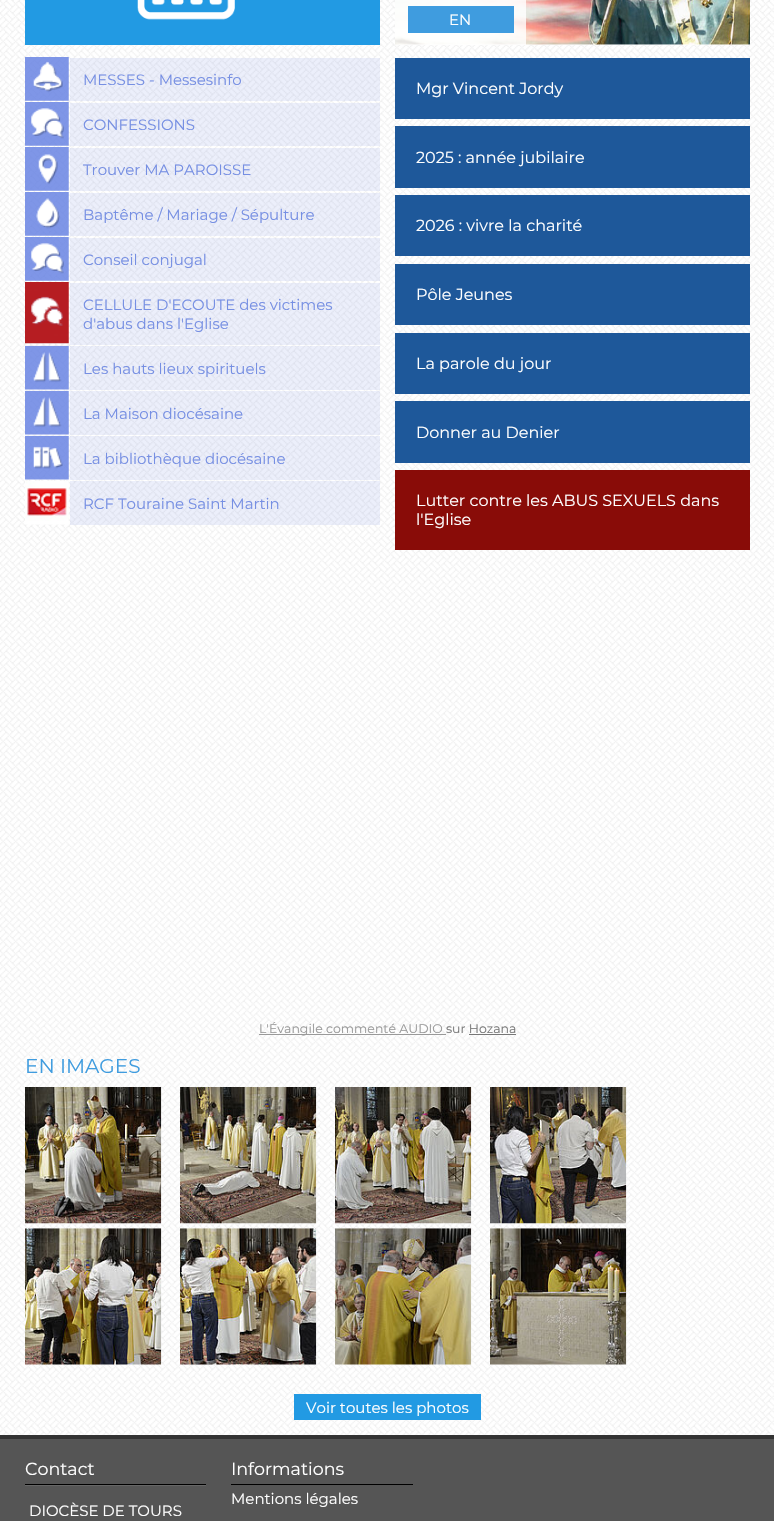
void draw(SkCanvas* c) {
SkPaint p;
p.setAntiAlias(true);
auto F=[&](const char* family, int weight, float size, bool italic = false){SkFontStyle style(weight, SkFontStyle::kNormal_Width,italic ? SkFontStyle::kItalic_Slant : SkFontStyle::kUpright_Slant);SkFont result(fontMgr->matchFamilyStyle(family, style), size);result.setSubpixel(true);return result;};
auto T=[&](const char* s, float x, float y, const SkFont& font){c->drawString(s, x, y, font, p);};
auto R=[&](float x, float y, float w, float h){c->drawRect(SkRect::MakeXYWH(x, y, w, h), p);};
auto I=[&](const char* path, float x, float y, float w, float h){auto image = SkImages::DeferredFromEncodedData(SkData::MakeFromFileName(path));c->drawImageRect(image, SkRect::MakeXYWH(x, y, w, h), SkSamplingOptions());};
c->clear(0xffffffff);
I("1.png",0,0,774,1435);
p.setColor(0xff229ae3);
R(25,0,355,45);
I("2.png",137,0,98,20);
p.setColor(0xffffffff);
R(395,44,355,1);
I("3.png",395,0,355,45);
p.setColor(0xccffffff);
R(395,0,131,45);
p.setColor(0xff3f9cdf);
R(408,6,106,27);
auto f1 = F("Montserrat",400,15);
p.setColor(0xffffffff);
T("EN",449,25,f1);
I("4.png",25,57,44,44);
p.setColor(0x267f96e7);
R(70,58,310,43);
p.setColor(0xff768fe3);
T("MESSES - Messesinfo",83,85,f1);
I("5.png",25,102,44,44);
p.setColor(0x267f96e7);
R(70,103,310,43);
p.setColor(0xff768fe3);
T("CONFESSIONS",83,130,f1);
I("6.png",25,147,44,44);
p.setColor(0x267f96e7);
R(70,148,310,43);
p.setColor(0xff768fe3);
T("Trouver MA PAROISSE",83,175,f1);
I("7.png",25,192,44,44);
p.setColor(0x267f96e7);
R(70,193,310,43);
p.setColor(0xff768fe3);
T("Baptême / Mariage / Sépulture",83,220,f1);
I("8.png",25,237,44,44);
p.setColor(0x267f96e7);
R(70,238,310,43);
p.setColor(0xff768fe3);
T("Conseil conjugal",83,265,f1);
I("9.png",25,282,44,62);
p.setColor(0x267f96e7);
R(70,283,310,62);
p.setColor(0xff768fe3);
T("CELLULE D'ECOUTE des victimes",83,310,f1);
T("d'abus dans l'Eglise",83,329,f1);
I("10.png",25,345,44,45);
p.setColor(0x267f96e7);
R(70,346,310,44);
p.setColor(0xff768fe3);
T("Les hauts lieux spirituels",83,374,f1);
I("11.png",25,390,44,45);
p.setColor(0x267f96e7);
R(70,391,310,44);
p.setColor(0xff768fe3);
T("La Maison diocésaine",83,419,f1);
I("12.png",25,435,44,45);
p.setColor(0x267f96e7);
R(70,436,310,44);
p.setColor(0xff768fe3);
T("La bibliothèque diocésaine",83,464,f1);
I("13.png",25,481,44,44);
p.setColor(0x267f96e7);
R(70,481,310,44);
p.setColor(0xff768fe3);
T("RCF Touraine Saint Martin",83,509,f1);
p.setColor(0xff1e589a);
R(395,58,355,61);
auto f2 = F("Montserrat",400,16);
p.setColor(0xffffffff);
T("Mgr Vincent Jordy",416,94,f2);
p.setColor(0xff1e589a);
R(395,126,355,62);
p.setColor(0xffffffff);
T("2025 : année jubilaire",416,163,f2);
p.setColor(0xff1e589a);
R(395,195,355,61);
p.setColor(0xffffffff);
T("2026 : vivre la charité",416,231,f2);
p.setColor(0xff1e589a);
R(395,264,355,61);
p.setColor(0xffffffff);
T("Pôle Jeunes",416,300,f2);
p.setColor(0xff1e589a);
R(395,333,355,61);
p.setColor(0xffffffff);
T("La parole du jour",416,369,f2);
p.setColor(0xff1e589a);
R(395,401,355,62);
p.setColor(0xffffffff);
T("Donner au Denier",416,438,f2);
p.setColor(0xff890c08);
R(395,470,355,80);
p.setColor(0xffffffff);
T("Lutter contre les ABUS SEXUELS dans",416,506,f2);
T("l'Eglise",416,525,f2);
p.setColor(0xff999999);
R(259,1034,187,1);
auto f3 = F("Montserrat",400,12.5);
T("L'Évangile commenté AUDIO",259,1033,f3);
p.setColor(0xff777777);
T("sur Hozana",446,1033,f3);
R(469,1034,47,1);
auto f4 = F("Montserrat",400,20);
p.setColor(0xff3f9cdf);
T("EN IMAGES",25,1073,f4);
I("14.png",25,1087,137,137);
I("15.png",180,1087,137,137);
I("16.png",335,1087,137,137);
I("17.png",490,1087,137,137);
I("18.png",25,1228,137,137);
I("19.png",180,1228,137,137);
I("20.png",335,1228,137,137);
I("21.png",490,1228,137,137);
p.setColor(0xff229ae3);
R(294,1394,187,26);
p.setColor(0xffffffff);
T("Voir toutes les photos",306,1413,f1);
p.setColor(0xff555555);
R(0,1439,774,82);
p.setColor(0xff333333);
R(0,1435,774,4);
p.setColor(0xff000000);
R(25,1484,181,1);
auto f5 = F("Montserrat",400,17.5);
p.setColor(0xffffffff);
T("Contact",25,1475,f5);
p.setColor(0xff666666);
R(25,1485,181,1);
p.setColor(0xffffffff);
T("DIOCÈSE DE TOURS",29,1516,f1);
p.setColor(0xff000000);
R(231,1484,182,1);
p.setColor(0xffffffff);
T("Informations",231,1475,f5);
T("Mentions légales",231,1504,f1);
}
